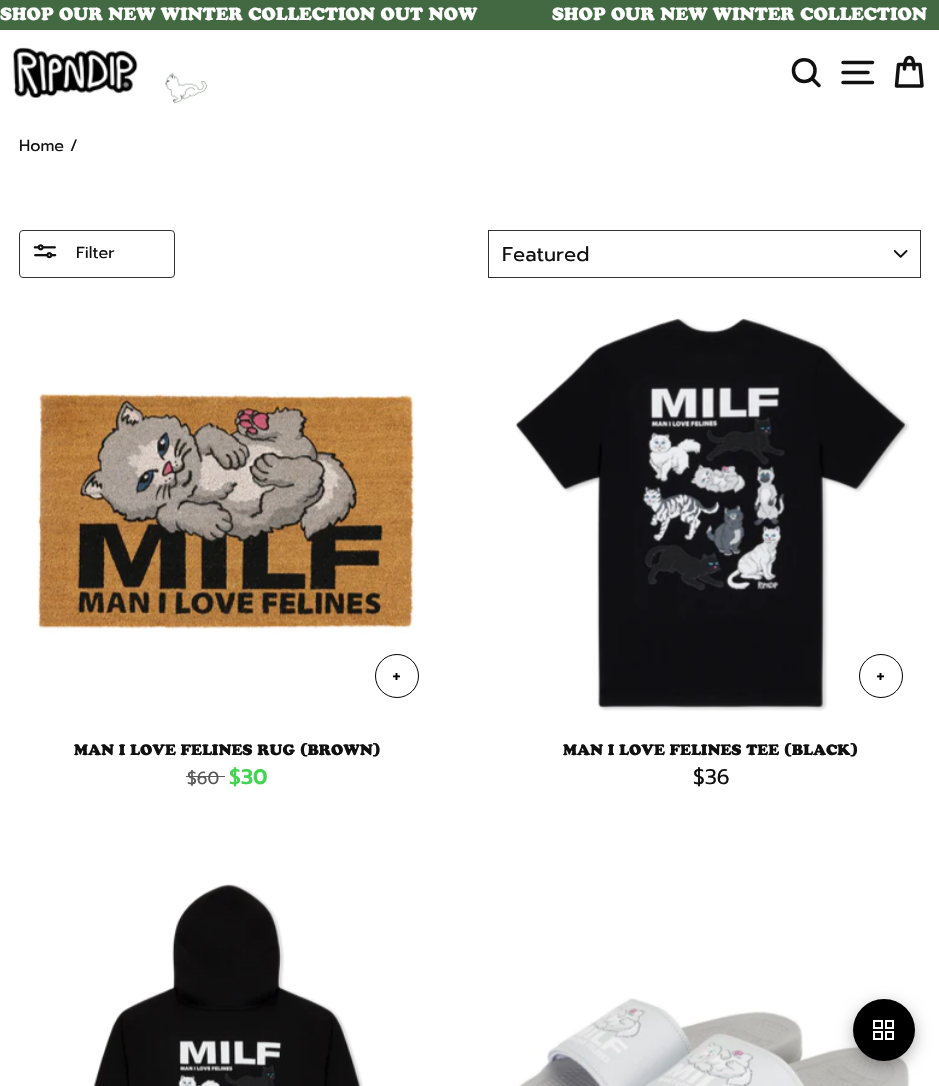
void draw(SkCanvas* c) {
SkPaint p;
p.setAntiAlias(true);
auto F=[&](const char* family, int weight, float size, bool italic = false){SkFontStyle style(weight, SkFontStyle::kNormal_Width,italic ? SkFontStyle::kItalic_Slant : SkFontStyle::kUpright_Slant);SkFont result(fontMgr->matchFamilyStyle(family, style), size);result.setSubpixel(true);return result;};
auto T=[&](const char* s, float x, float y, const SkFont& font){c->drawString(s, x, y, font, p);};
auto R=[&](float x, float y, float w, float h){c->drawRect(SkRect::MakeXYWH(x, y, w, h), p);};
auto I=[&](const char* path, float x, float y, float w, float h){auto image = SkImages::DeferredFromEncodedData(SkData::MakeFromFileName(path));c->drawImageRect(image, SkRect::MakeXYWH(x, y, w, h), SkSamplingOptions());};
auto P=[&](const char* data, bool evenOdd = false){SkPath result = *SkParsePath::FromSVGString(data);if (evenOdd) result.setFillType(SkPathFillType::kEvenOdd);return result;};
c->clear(0xffffffff);
p.setColor(0xff426942);
R(0,0,939,30);
auto f1 = F("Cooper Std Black",900,17.5);
p.setColor(0xffffffff);
T("SHOP OUR NEW WINTER COLLECTION OUT NOW",0,20,f1);
T("SHOP OUR NEW WINTER COLLECTION",552,20,f1);
I("1.png",12,47,126,51);
I("2.png",165,72,42,31);
p.setStroke(true);
p.setStrokeWidth(3.5);
p.setStrokeCap(SkPaint::kRound_Cap);
p.setStrokeJoin(SkPaint::kRound_Join);
p.setColor(0xff111111);
c->drawPath(P("M815 70.5c0 14.5-21.5 14.5-21.5 0c0-14.5 21.5-14.5 21.5 0zm4 15l-7-7"),p);
c->drawPath(P("M843 62.5h29.5m-29.5 10h25m-25 10h29.5"),p);
c->drawPath(P("M904.5 69c0-9.5 2-11.5 5-11.5c2.5 0 4.5 2 4.5 11.5m-15.5-4.5h21.5l2 21.5h-25.5z"),p);
auto f2 = F("Prompt",400,16);
p.setStroke(false);
T("Home /",19,151,f2);
p.setStroke(true);
p.setStrokeWidth(1);
p.setStrokeCap(SkPaint::kButt_Cap);
p.setStrokeJoin(SkPaint::kMiter_Join);
p.setColor(0xff333333);
c->drawRoundRect(SkRect::MakeXYWH(19.5,230.5,155,47),3.5,3.5,p);
I("3.png",33,244,24,15);
p.setStroke(false);
p.setColor(0xff111111);
T("Filter",76,258,f2);
I("4.png",894,250,14,8);
p.setStroke(true);
p.setColor(0xff333333);
c->drawRect(SkRect::MakeXYWH(488.5,230.5,432,47),p);
auto f3 = F("Prompt",400,20);
p.setStroke(false);
p.setColor(0xff111111);
T("Featured",502,261,f3);
I("5.png",37,392,378,241);
p.setStroke(true);
p.setColor(0xff000000);
c->drawCircle(397,676,21.5,p);
auto f4 = F("Prompt",400,22);
p.setStroke(false);
T("+",392,683,f4);
auto f5 = F("Cooper Std Black",900,15);
p.setColor(0xff111111);
T("MAN I LOVE FELINES RUG (BROWN)",74,755,f5);
auto f6 = F("Prompt",400,17.5);
p.setColor(0xff585858);
T("$60",187,784,f6);
R(186,776,39,1);
auto f7 = F("Prompt",600,21);
p.setColor(0xff41d450);
T("$30",229,784,f7);
I("6.png",515,318,394,393);
p.setStroke(true);
p.setColor(0xff000000);
c->drawCircle(881,676,21.5,p);
p.setStroke(false);
T("+",876,683,f4);
p.setColor(0xff111111);
T("MAN I LOVE FELINES TEE (BLACK)",563,755,f5);
auto f8 = F("Prompt",400,21);
T("$36",693,784,f8);
I("7.png",93,884,270,202);
I("8.png",519,998,391,88);
p.setColor(0x4d000000);
p.setMaskFilter(SkMaskFilter::MakeBlur(kNormal_SkBlurStyle, 7.5));
c->drawRoundRect(SkRect::MakeXYWH(853,1004,62,62),31,31,p);
p.setMaskFilter(nullptr);
p.setColor(0xff000000);
c->drawCircle(884,1030,31,p);
p.setStroke(true);
p.setStrokeWidth(2);
p.setColor(0xffffffff);
c->drawRect(SkRect::MakeXYWH(874,1021,8,7),p);
c->drawRect(SkRect::MakeXYWH(886,1021,7,7),p);
c->drawRect(SkRect::MakeXYWH(886,1032,7,7),p);
c->drawRect(SkRect::MakeXYWH(874,1032,8,7),p);
}
